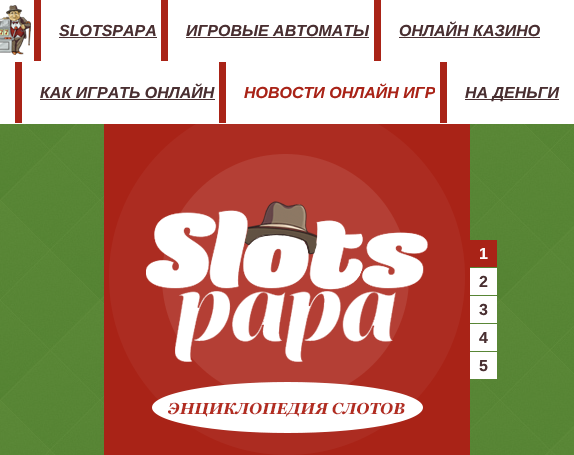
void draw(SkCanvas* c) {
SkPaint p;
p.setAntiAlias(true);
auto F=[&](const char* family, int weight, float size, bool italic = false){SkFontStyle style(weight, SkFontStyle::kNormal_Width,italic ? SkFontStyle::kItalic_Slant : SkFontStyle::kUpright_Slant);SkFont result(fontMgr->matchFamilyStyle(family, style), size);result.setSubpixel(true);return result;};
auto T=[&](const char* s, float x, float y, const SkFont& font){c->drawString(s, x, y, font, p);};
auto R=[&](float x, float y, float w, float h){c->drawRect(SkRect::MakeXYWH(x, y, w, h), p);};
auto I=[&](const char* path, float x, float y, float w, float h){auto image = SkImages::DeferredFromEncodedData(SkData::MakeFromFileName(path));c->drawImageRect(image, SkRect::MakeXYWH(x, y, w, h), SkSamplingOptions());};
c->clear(0xffffffff);
I("1.png",0,124,574,331);
p.setColor(0xffa92317);
R(34,0,7,61);
I("2.png",0,5,31,50);
auto f1 = F("Liberation Sans",700,16,true);
p.setColor(0xff492f31);
T("SLOTSPAPA",59,36,f1);
R(59,37,98,1);
p.setColor(0xffa92317);
R(161,0,7,61);
c->save();
c->clipRect(SkRect::MakeXYWH(161,0,208,61));
p.setColor(0xff492f31);
T("ИГРОВЫЕ АВТОМАТЫ",186,36,f1);
c->restore();
R(186,37,183,1);
p.setColor(0xffa92317);
R(374,0,7,61);
p.setColor(0xff492f31);
T("ОНЛАЙН КАЗИНО",399,36,f1);
R(399,37,141,1);
p.setColor(0xffa92317);
R(15,62,7,61);
p.setColor(0xff492f31);
T("КАК ИГРАТЬ ОНЛАЙН",40,98,f1);
R(40,99,175,1);
p.setColor(0xffa92317);
R(219,62,7,61);
c->save();
c->clipRect(SkRect::MakeXYWH(219,62,216,61));
T("НОВОСТИ ОНЛАЙН ИГР",244,98,f1);
c->restore();
R(440,62,7,61);
p.setColor(0xff492f31);
R(465,99,94,1);
T("НА ДЕНЬГИ",465,98,f1);
p.setColor(0xffa92317);
R(104,124,366,331);
I("4.png",146,201,282,161);
I("5.png",152,382,271,51);
I("3.png",109,124,356,331);
R(470,240,27,27);
auto f2 = F("Liberation Sans",700,16);
p.setColor(0xffffffff);
T("1",479,259,f2);
R(470,268,27,27);
p.setColor(0xff492f31);
T("2",479,287,f2);
p.setColor(0xffffffff);
R(470,296,27,27);
p.setColor(0xff492f31);
T("3",479,315,f2);
p.setColor(0xffffffff);
R(470,324,27,27);
p.setColor(0xff492f31);
T("4",479,343,f2);
p.setColor(0xffffffff);
R(470,352,27,27);
p.setColor(0xff492f31);
T("5",479,371,f2);
}
